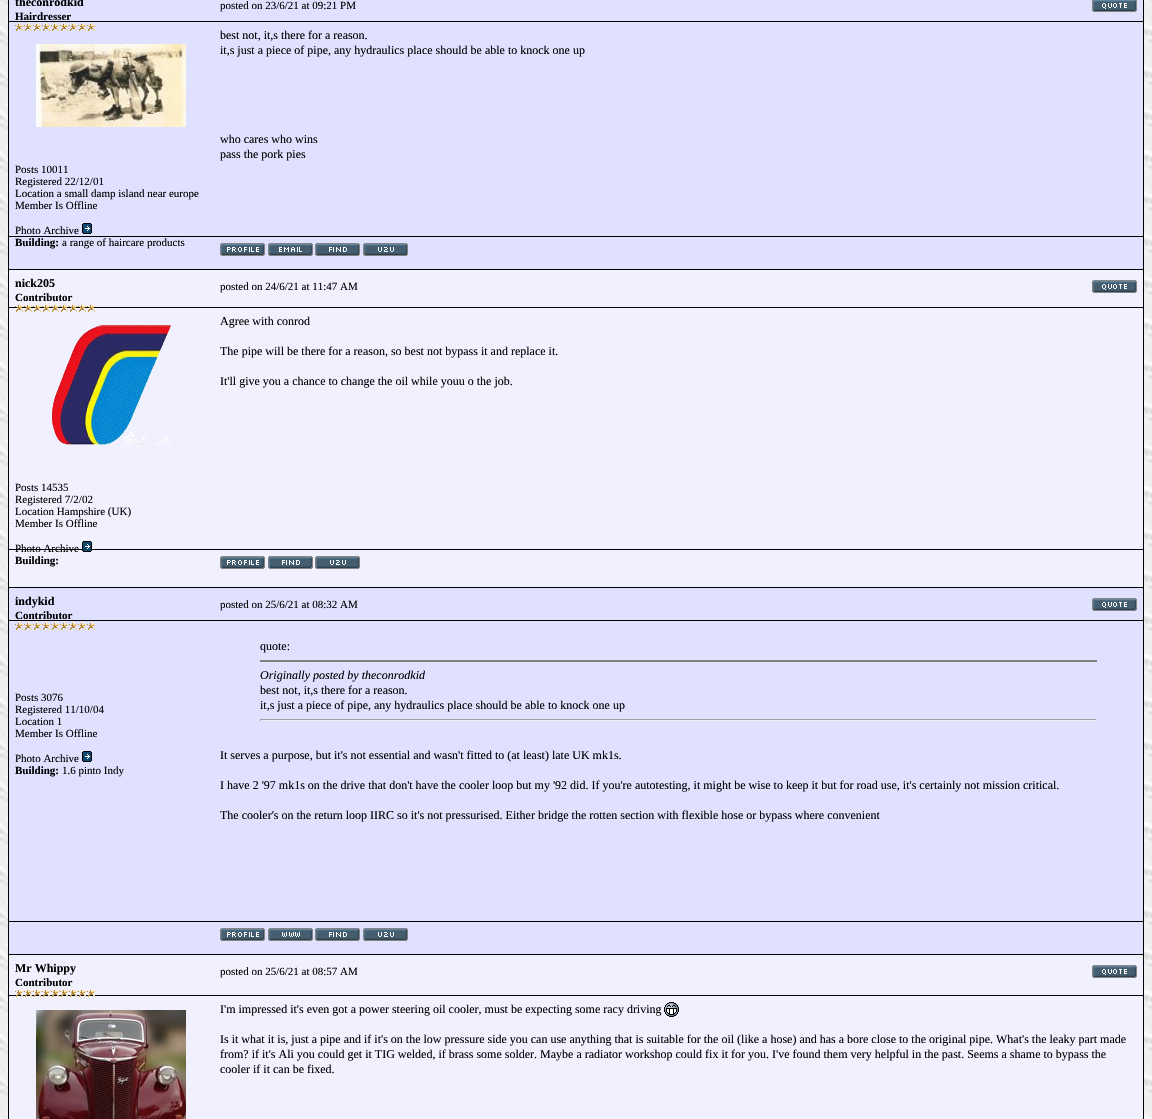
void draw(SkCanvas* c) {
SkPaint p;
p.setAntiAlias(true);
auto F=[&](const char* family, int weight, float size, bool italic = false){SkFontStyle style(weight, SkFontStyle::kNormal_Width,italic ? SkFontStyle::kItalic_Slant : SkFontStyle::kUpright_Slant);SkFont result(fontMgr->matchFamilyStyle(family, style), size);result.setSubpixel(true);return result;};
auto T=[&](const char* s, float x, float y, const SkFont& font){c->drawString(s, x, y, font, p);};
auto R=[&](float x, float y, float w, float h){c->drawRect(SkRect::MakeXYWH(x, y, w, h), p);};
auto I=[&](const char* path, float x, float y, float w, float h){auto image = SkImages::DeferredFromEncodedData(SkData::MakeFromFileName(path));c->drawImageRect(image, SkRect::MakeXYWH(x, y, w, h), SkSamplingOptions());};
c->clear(0xffffffff);
I("1.png",0,0,1152,1119);
p.setColor(0xff000000);
R(8,0,1136,1119);
p.setColor(0xffe0e0ff);
R(9,0,1134,21);
auto f1 = F("Liberation Serif",700,12);
p.setColor(0xff000000);
T("theconrodkid",15,6,f1);
auto f2 = F("Liberation Serif",700,11);
T("Hairdresser",15,20,f2);
p.setColor(0xffe0e0ff);
R(9,22,1134,214);
I("2.png",15,22,9,9);
I("2.png",24,22,9,9);
I("2.png",33,22,9,9);
I("2.png",42,22,9,9);
I("2.png",51,22,9,9);
I("2.png",60,22,9,9);
I("2.png",69,22,9,9);
I("2.png",78,22,9,9);
I("2.png",87,22,9,9);
I("3.png",36,44,150,83);
auto f3 = F("Liberation Serif",400,11);
p.setColor(0xff000000);
T("Posts 10011",15,173,f3);
T("Registered 22/12/01",15,185,f3);
T("Location a small damp island near europe",15,197,f3);
T("Member Is Offline",15,209,f3);
T("Photo Archive",15,234,f3);
I("4.png",82,223,10,11);
p.setColor(0xffe0e0ff);
R(9,237,1134,32);
p.setColor(0xff000000);
T("Building:",15,246,f2);
T("a range of haircare products",62,246,f3);
T("posted on 23/6/21 at 09:21 PM",220,9,f3);
I("5.png",1092,0,45,12);
auto f4 = F("Liberation Serif",400,12);
T("best not, it,s there for a reason.",220,39,f4);
T("it,s just a piece of pipe, any hydraulics place should be able to knock one up",220,54,f4);
T("who cares who wins",220,143,f4);
T("pass the pork pies",220,158,f4);
I("6.png",220,243,45,13);
I("7.png",268,243,45,13);
I("8.png",315,243,45,13);
I("9.png",363,243,45,13);
p.setColor(0xfff0f0ff);
R(9,270,1134,37);
p.setColor(0xff000000);
T("nick205",15,287,f1);
T("Contributor",15,301,f2);
p.setColor(0xfff0f0ff);
R(9,308,1134,241);
I("10.png",15,303,9,9);
I("10.png",24,303,9,9);
I("10.png",33,303,9,9);
I("10.png",42,303,9,9);
I("10.png",51,303,9,9);
I("10.png",60,303,9,9);
I("10.png",69,303,9,9);
I("10.png",78,303,9,9);
I("10.png",87,303,9,9);
I("11.png",52,325,119,120);
p.setColor(0xff000000);
T("Posts 14535",15,491,f3);
T("Registered 7/2/02",15,503,f3);
T("Location Hampshire (UK)",15,515,f3);
T("Member Is Offline",15,527,f3);
p.setColor(0xfff0f0ff);
R(9,550,1134,37);
p.setColor(0xff000000);
T("Photo Archive",15,552,f3);
I("12.png",82,541,10,11);
T("Building:",15,564,f2);
T("posted on 24/6/21 at 11:47 AM",220,290,f3);
I("13.png",1092,280,45,13);
T("Agree with conrod",220,325,f4);
T("The pipe will be there for a reason, so best not bypass it and replace it.",220,355,f4);
T("It'll give you a chance to change the oil while youu o the job.",220,385,f4);
I("14.png",220,556,45,13);
I("15.png",268,556,45,13);
I("16.png",315,556,45,13);
p.setColor(0xffe0e0ff);
R(9,588,1134,32);
p.setColor(0xff000000);
T("indykid",15,605,f1);
T("Contributor",15,619,f2);
p.setColor(0xffe0e0ff);
R(9,621,1134,300);
I("2.png",15,621,9,9);
I("2.png",24,621,9,9);
I("2.png",33,621,9,9);
I("2.png",42,621,9,9);
I("2.png",51,621,9,9);
I("2.png",60,621,9,9);
I("2.png",69,621,9,9);
I("2.png",78,621,9,9);
I("2.png",87,621,9,9);
p.setColor(0xff000000);
T("Posts 3076",15,701,f3);
T("Registered 11/10/04",15,713,f3);
T("Location 1",15,725,f3);
T("Member Is Offline",15,737,f3);
T("Photo Archive",15,762,f3);
I("4.png",82,751,10,11);
T("Building:",15,774,f2);
T("1.6 pinto Indy",62,774,f3);
T("posted on 25/6/21 at 08:32 AM",220,608,f3);
I("17.png",1092,598,45,13);
T("quote:",260,650,f4);
p.setColor(0xff808080);
R(260,660,837,2);
auto f5 = F("Liberation Serif",400,12,true);
p.setColor(0xff000000);
T("Originally posted by theconrodkid",260,679,f5);
T("best not, it,s there for a reason.",260,694,f4);
T("it,s just a piece of pipe, any hydraulics place should be able to knock one up",260,709,f4);
p.setColor(0xff9f9f9f);
R(260,719,837,1);
p.setColor(0xffeeeeee);
R(1096,719,1,2);
R(260,720,837,1);
p.setColor(0xff9f9f9f);
R(260,719,1,2);
p.setColor(0xff000000);
T("It serves a purpose, but it's not essential and wasn't fitted to (at least) late UK mk1s.",220,759,f4);
T("I have 2 '97 mk1s on the drive that don't have the cooler loop but my '92 did. If you're autotesting, it might be wise to keep it but for road use, it's certainly not mission critical.",220,789,f4);
T("The cooler's on the return loop IIRC so it's not pressurised. Either bridge the rotten section with flexible hose or bypass where convenient",220,819,f4);
p.setColor(0xffe0e0ff);
R(9,922,1134,32);
I("6.png",220,928,45,13);
I("18.png",268,928,45,13);
I("8.png",315,928,45,13);
I("9.png",363,928,45,13);
p.setColor(0xfff0f0ff);
R(9,955,1134,40);
p.setColor(0xff000000);
T("Mr Whippy",15,972,f1);
T("Contributor",15,986,f2);
p.setColor(0xfff0f0ff);
R(9,996,1134,123);
I("19.png",15,988,9,9);
I("19.png",24,988,9,9);
I("19.png",33,988,9,9);
I("19.png",42,988,9,9);
I("19.png",51,988,9,9);
I("19.png",60,988,9,9);
I("19.png",69,988,9,9);
I("19.png",78,988,9,9);
I("19.png",87,988,9,9);
I("20.png",36,1010,150,109);
p.setColor(0xff000000);
T("posted on 25/6/21 at 08:57 AM",220,975,f3);
I("13.png",1092,965,45,13);
T("I'm impressed it's even got a power steering oil cooler, must be expecting some racy driving",220,1013,f4);
I("21.png",664,1002,15,15);
T("Is it what it is, just a pipe and if it's on the low pressure side you can use anything that is suitable for the oil (like a hose) and has a bore close to the original pipe. What's the leaky part made",220,1043,f4);
T("from? if it's Ali you could get it TIG welded, if brass some solder. Maybe a radiator workshop could fix it for you. I've found them very helpful in the past. Seems a shame to bypass the",220,1058,f4);
T("cooler if it can be fixed.",220,1073,f4);
}
